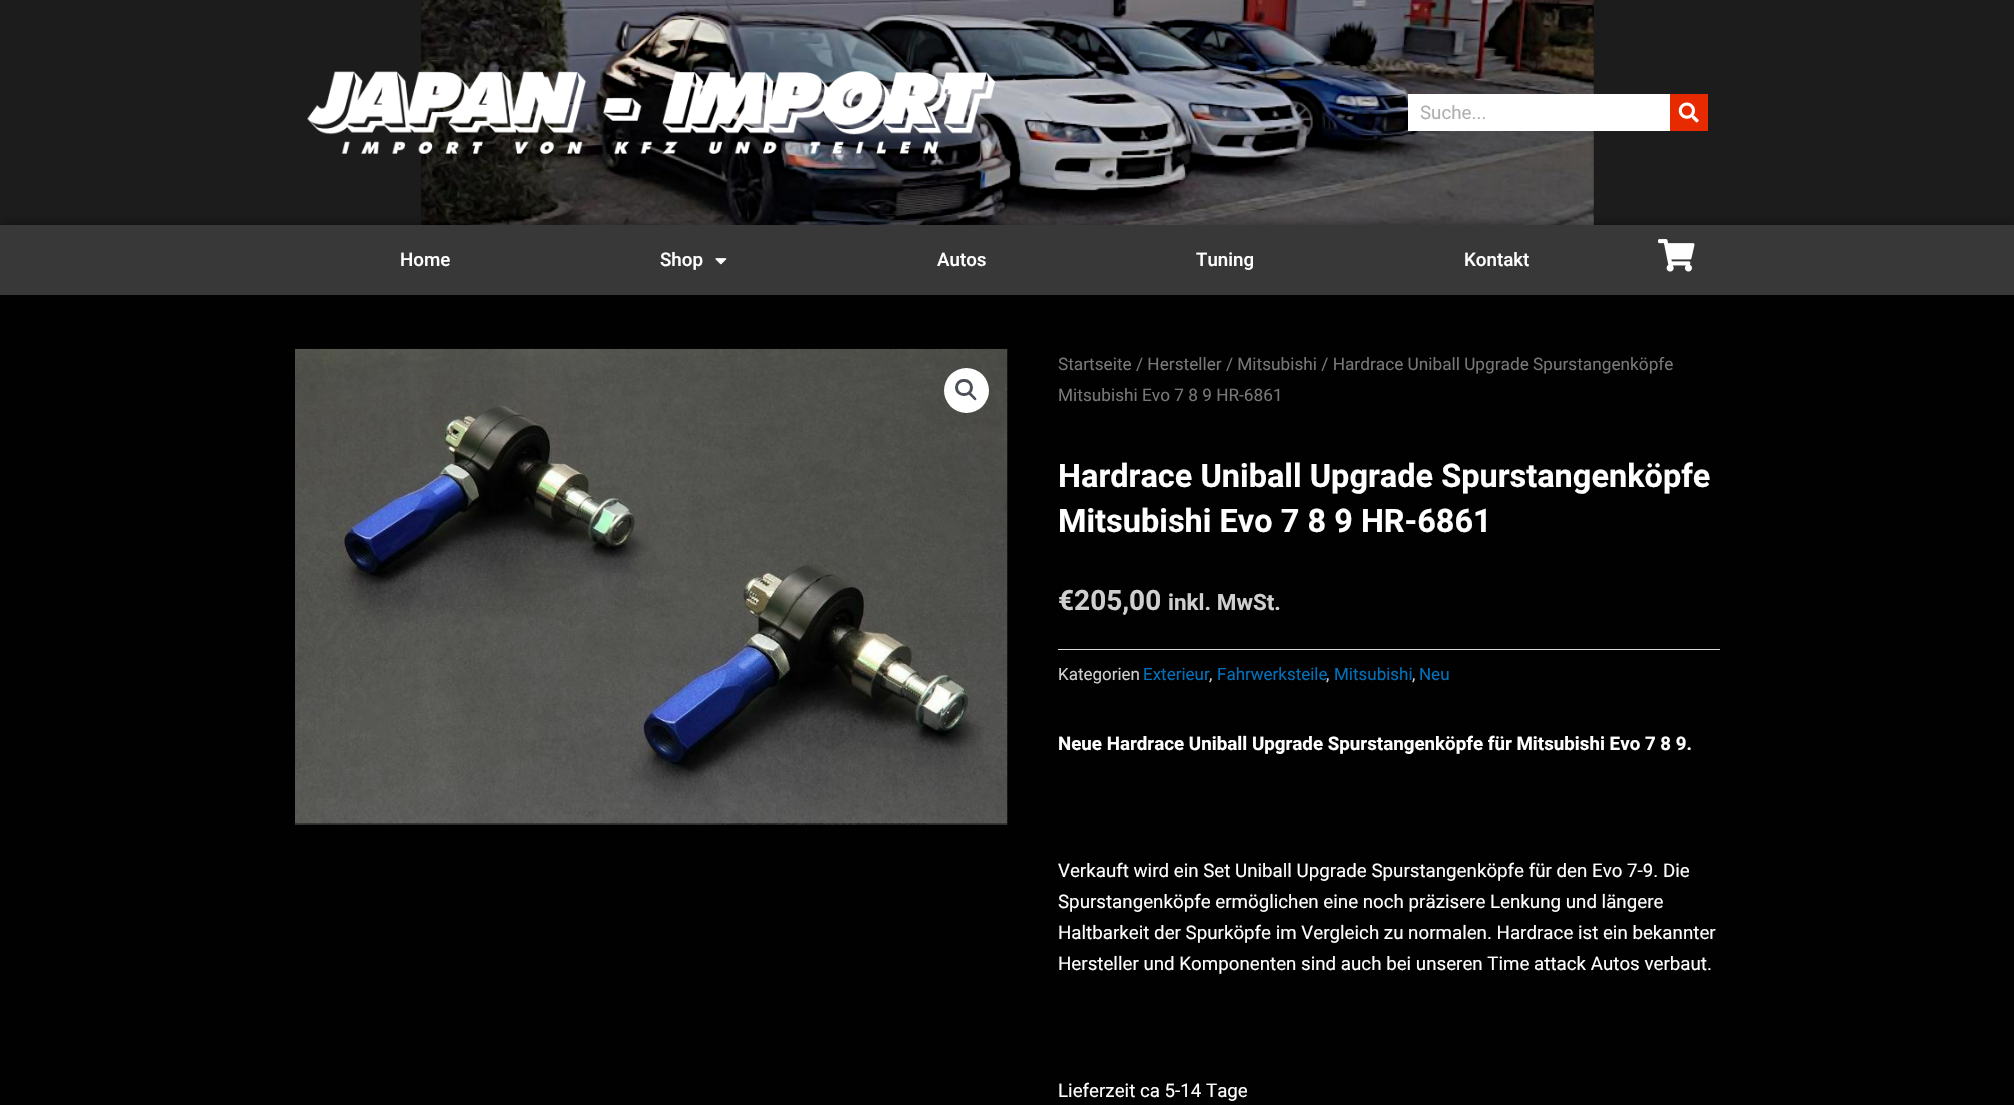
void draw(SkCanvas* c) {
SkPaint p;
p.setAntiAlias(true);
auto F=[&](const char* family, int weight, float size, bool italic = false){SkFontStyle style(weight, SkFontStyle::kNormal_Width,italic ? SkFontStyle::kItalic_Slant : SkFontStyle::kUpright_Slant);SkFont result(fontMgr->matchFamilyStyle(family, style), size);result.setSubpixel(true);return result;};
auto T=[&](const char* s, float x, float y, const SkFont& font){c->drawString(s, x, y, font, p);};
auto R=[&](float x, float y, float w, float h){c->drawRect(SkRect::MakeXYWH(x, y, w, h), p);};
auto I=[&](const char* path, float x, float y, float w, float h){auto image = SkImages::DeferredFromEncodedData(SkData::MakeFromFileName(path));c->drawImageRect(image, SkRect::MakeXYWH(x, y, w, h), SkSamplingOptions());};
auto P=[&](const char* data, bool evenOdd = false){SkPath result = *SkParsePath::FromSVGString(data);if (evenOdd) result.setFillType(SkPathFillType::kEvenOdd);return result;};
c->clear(0xff020101);
p.setColor(0xff1c1c1c);
R(0,0,2014,225);
I("1.png",421,0,1173,225);
I("2.png",307,71,688,83);
p.setColor(0xffffffff);
R(1408,94,262,37);
auto f1 = F("Roboto",400,18.75);
p.setColor(0xffafafaf);
T("Suche...",1420,119,f1);
p.setColor(0xffe82a00);
R(1670,94,38,37);
I("3.png",1678,102,21,21);
p.setColor(0x80000000);
p.setMaskFilter(SkMaskFilter::MakeBlur(kNormal_SkBlurStyle, 6));
c->drawRect(SkRect::MakeXYWH(0,225,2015,74),p);
p.setMaskFilter(nullptr);
p.setColor(0xff383838);
R(0,225,2014,70);
auto f2 = F("Roboto",500,18.75);
p.setColor(0xffffffff);
T("Home",400,266,f2);
T("Shop",660,266,f2);
I("4.png",715,258,12,7);
T("Autos",937,266,f2);
T("Tuning",1196,266,f2);
T("Kontakt",1464,266,f2);
I("5.png",1658,239,37,33);
I("6.png",295,348,713,477);
c->drawCircle(966.5,390.5,22.5,p);
p.setStroke(true);
p.setStrokeWidth(3);
p.setColor(0xff4b4f58);
c->drawRoundRect(SkRect::MakeXYWH(956.5,380.5,15,14),7,7,p);
p.setStroke(false);
c->drawPath(P("M969 392.5c1.5-1 3.5 2 4.5 3c.5 .5 4 3 2.5 4.5c-1.5 1-3.5-2-4.5-3c-.5-.5-4-3-2.5-4.5z"),p);
auto f3 = F("Roboto",400,17.25);
p.setColor(0xff777777);
T("Startseite / Hersteller / Mitsubishi / Hardrace Uniball Upgrade Spurstangenköpfe",1058,370,f3);
T("Mitsubishi Evo 7 8 9 HR-6861",1058,401,f3);
auto f4 = F("Roboto",700,32.5);
p.setColor(0xffffffff);
T("Hardrace Uniball Upgrade Spurstangenköpfe",1058,487,f4);
T("Mitsubishi Evo 7 8 9 HR-6861",1058,532,f4);
auto f5 = F("Roboto",700,28);
p.setColor(0xffcfcfcf);
T("€205,00",1058,610,f5);
auto f6 = F("Roboto",700,22.5);
T("inkl. MwSt.",1168,610,f6);
p.setColor(0xffdddddd);
R(1058,649,662,1);
auto f7 = F("Roboto",400,17);
p.setColor(0xffcfcfcf);
T("Kategorien",1058,680,f7);
p.setColor(0xff0170b9);
T("Exterieur",1143,680,f7);
p.setColor(0xffcfcfcf);
T(",",1209,680,f7);
p.setColor(0xff0170b9);
T("Fahrwerksteile",1217,680,f7);
p.setColor(0xffcfcfcf);
T(",",1326,680,f7);
p.setColor(0xff0170b9);
T("Mitsubishi",1334,680,f7);
p.setColor(0xffcfcfcf);
T(",",1412,680,f7);
p.setColor(0xff0170b9);
T("Neu",1419,680,f7);
auto f8 = F("Roboto",700,18.75);
p.setColor(0xffffffff);
T("Neue Hardrace Uniball Upgrade Spurstangenköpfe für Mitsubishi Evo 7 8 9.",1058,750,f8);
T("Verkauft wird ein Set Uniball Upgrade Spurstangenköpfe für den Evo 7-9. Die",1058,877,f1);
T("Spurstangenköpfe ermöglichen eine noch präzisere Lenkung und längere",1058,908,f1);
T("Haltbarkeit der Spurköpfe im Vergleich zu normalen. Hardrace ist ein bekannter",1058,939,f1);
T("Hersteller und Komponenten sind auch bei unseren Time attack Autos verbaut.",1058,970,f1);
T("Lieferzeit ca 5-14 Tage",1058,1097,f1);
}
